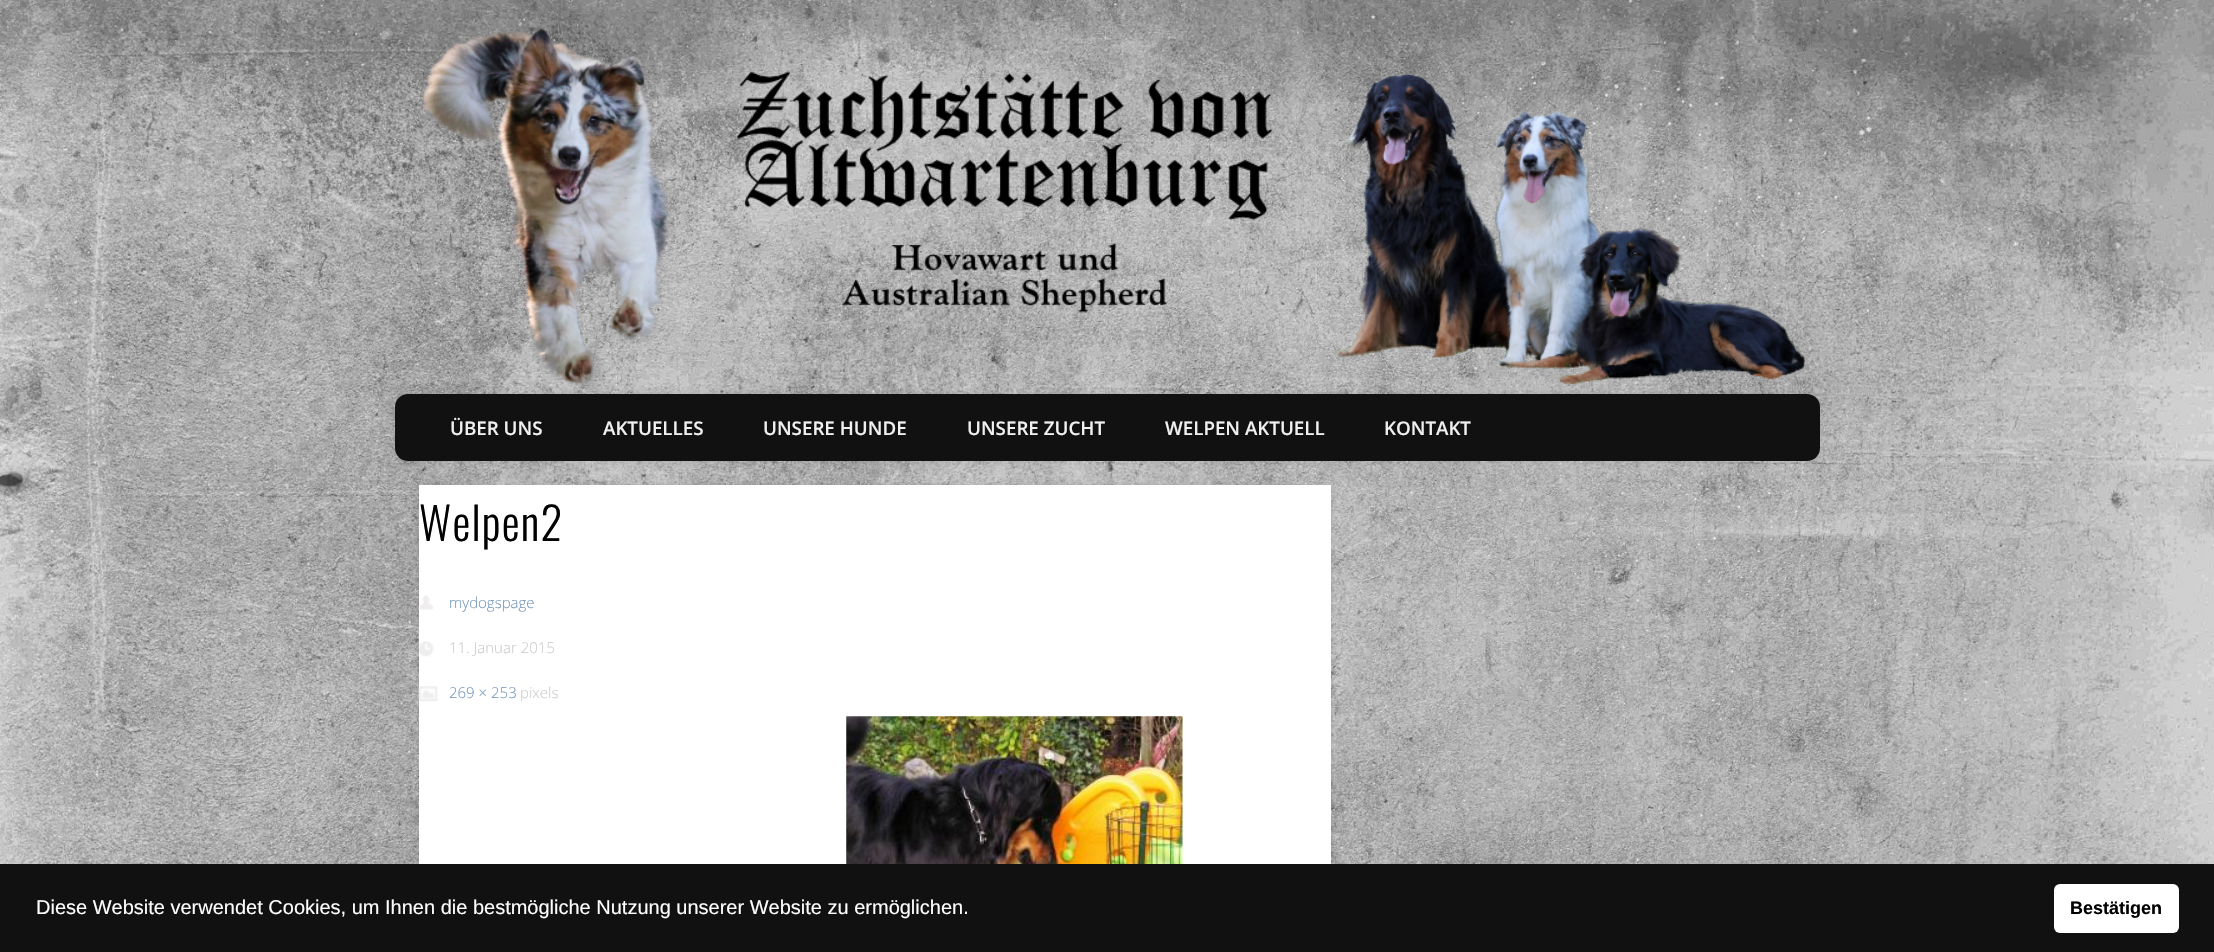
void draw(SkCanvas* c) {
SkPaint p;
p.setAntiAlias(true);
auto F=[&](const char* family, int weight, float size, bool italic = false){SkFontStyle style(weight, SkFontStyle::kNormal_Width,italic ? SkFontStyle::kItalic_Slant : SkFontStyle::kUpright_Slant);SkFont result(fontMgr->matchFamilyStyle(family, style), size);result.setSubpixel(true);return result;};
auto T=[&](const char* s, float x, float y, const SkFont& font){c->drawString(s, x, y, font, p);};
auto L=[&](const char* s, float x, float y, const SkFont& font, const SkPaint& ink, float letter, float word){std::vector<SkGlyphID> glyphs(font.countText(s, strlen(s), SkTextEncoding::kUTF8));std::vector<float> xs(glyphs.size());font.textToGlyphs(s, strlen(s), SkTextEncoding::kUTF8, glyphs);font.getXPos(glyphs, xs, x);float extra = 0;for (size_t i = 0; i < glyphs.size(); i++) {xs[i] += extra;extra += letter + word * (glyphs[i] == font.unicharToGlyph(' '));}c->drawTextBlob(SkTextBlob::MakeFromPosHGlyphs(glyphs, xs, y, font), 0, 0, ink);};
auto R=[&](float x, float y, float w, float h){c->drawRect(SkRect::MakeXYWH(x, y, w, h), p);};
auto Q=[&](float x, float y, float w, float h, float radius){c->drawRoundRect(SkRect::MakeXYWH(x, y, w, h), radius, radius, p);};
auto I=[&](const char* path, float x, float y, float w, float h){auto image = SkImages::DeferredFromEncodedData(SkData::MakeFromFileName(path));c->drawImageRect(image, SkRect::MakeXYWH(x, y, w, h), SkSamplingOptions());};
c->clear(0xffffffff);
I("1.png",0,0,2214,864);
I("2.png",422,27,1398,363);
c->save();
c->clipRect(SkRect::MakeXYWH(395,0,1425,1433));
p.setColor(0x1a000000);
p.setMaskFilter(SkMaskFilter::MakeBlur(kNormal_SkBlurStyle, 4.5));
c->drawRoundRect(SkRect::MakeXYWH(395,394,1425,67),13,13,p);
p.setMaskFilter(nullptr);
c->restore();
p.setColor(0xff111111);
Q(395,394,1425,67,13);
auto f1 = F("Open Sans",600,18.75);
p.setColor(0xfff0f0f0);
T("ÜBER UNS",450,435,f1);
T("AKTUELLES",603,435,f1);
T("UNSERE HUNDE",763,435,f1);
T("UNSERE ZUCHT",967,435,f1);
T("WELPEN AKTUELL",1165,435,f1);
T("KONTAKT",1384,435,f1);
p.setColor(0x1a000000);
p.setMaskFilter(SkMaskFilter::MakeBlur(kNormal_SkBlurStyle, 3));
c->drawRect(SkRect::MakeXYWH(419,485,912,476),p);
p.setMaskFilter(nullptr);
p.setColor(0xffffffff);
R(419,485,912,379);
auto f2 = F("Oswald",300,45);
p.setColor(0xff000000);
L("Welpen2",419,541,f2,p,1.25,0);
I("3.png",418,595,16,15);
auto f3 = F("Open Sans",300,15);
p.setColor(0xff7597b9);
T("mydogspage",449,608,f3);
I("4.png",418,641,16,16);
p.setColor(0xffcccccc);
T("11. Januar 2015",449,653,f3);
I("5.png",418,686,20,16);
p.setColor(0xff7597b9);
T("269 × 253",449,698,f3);
p.setColor(0xffcccccc);
T("pixels",520,698,f3);
I("6.png",846,716,337,148);
p.setColor(0xff111111);
R(0,864,2214,88);
auto f4 = F("Liberation Sans",400,20);
p.setColor(0xffffffff);
T("Diese Website verwendet Cookies, um Ihnen die bestmögliche Nutzung unserer Website zu ermöglichen.",36,914,f4);
Q(2054,884,125,49,6);
auto f5 = F("Liberation Sans",700,18);
p.setColor(0xff000000);
T("Bestätigen",2070,914,f5);
}
